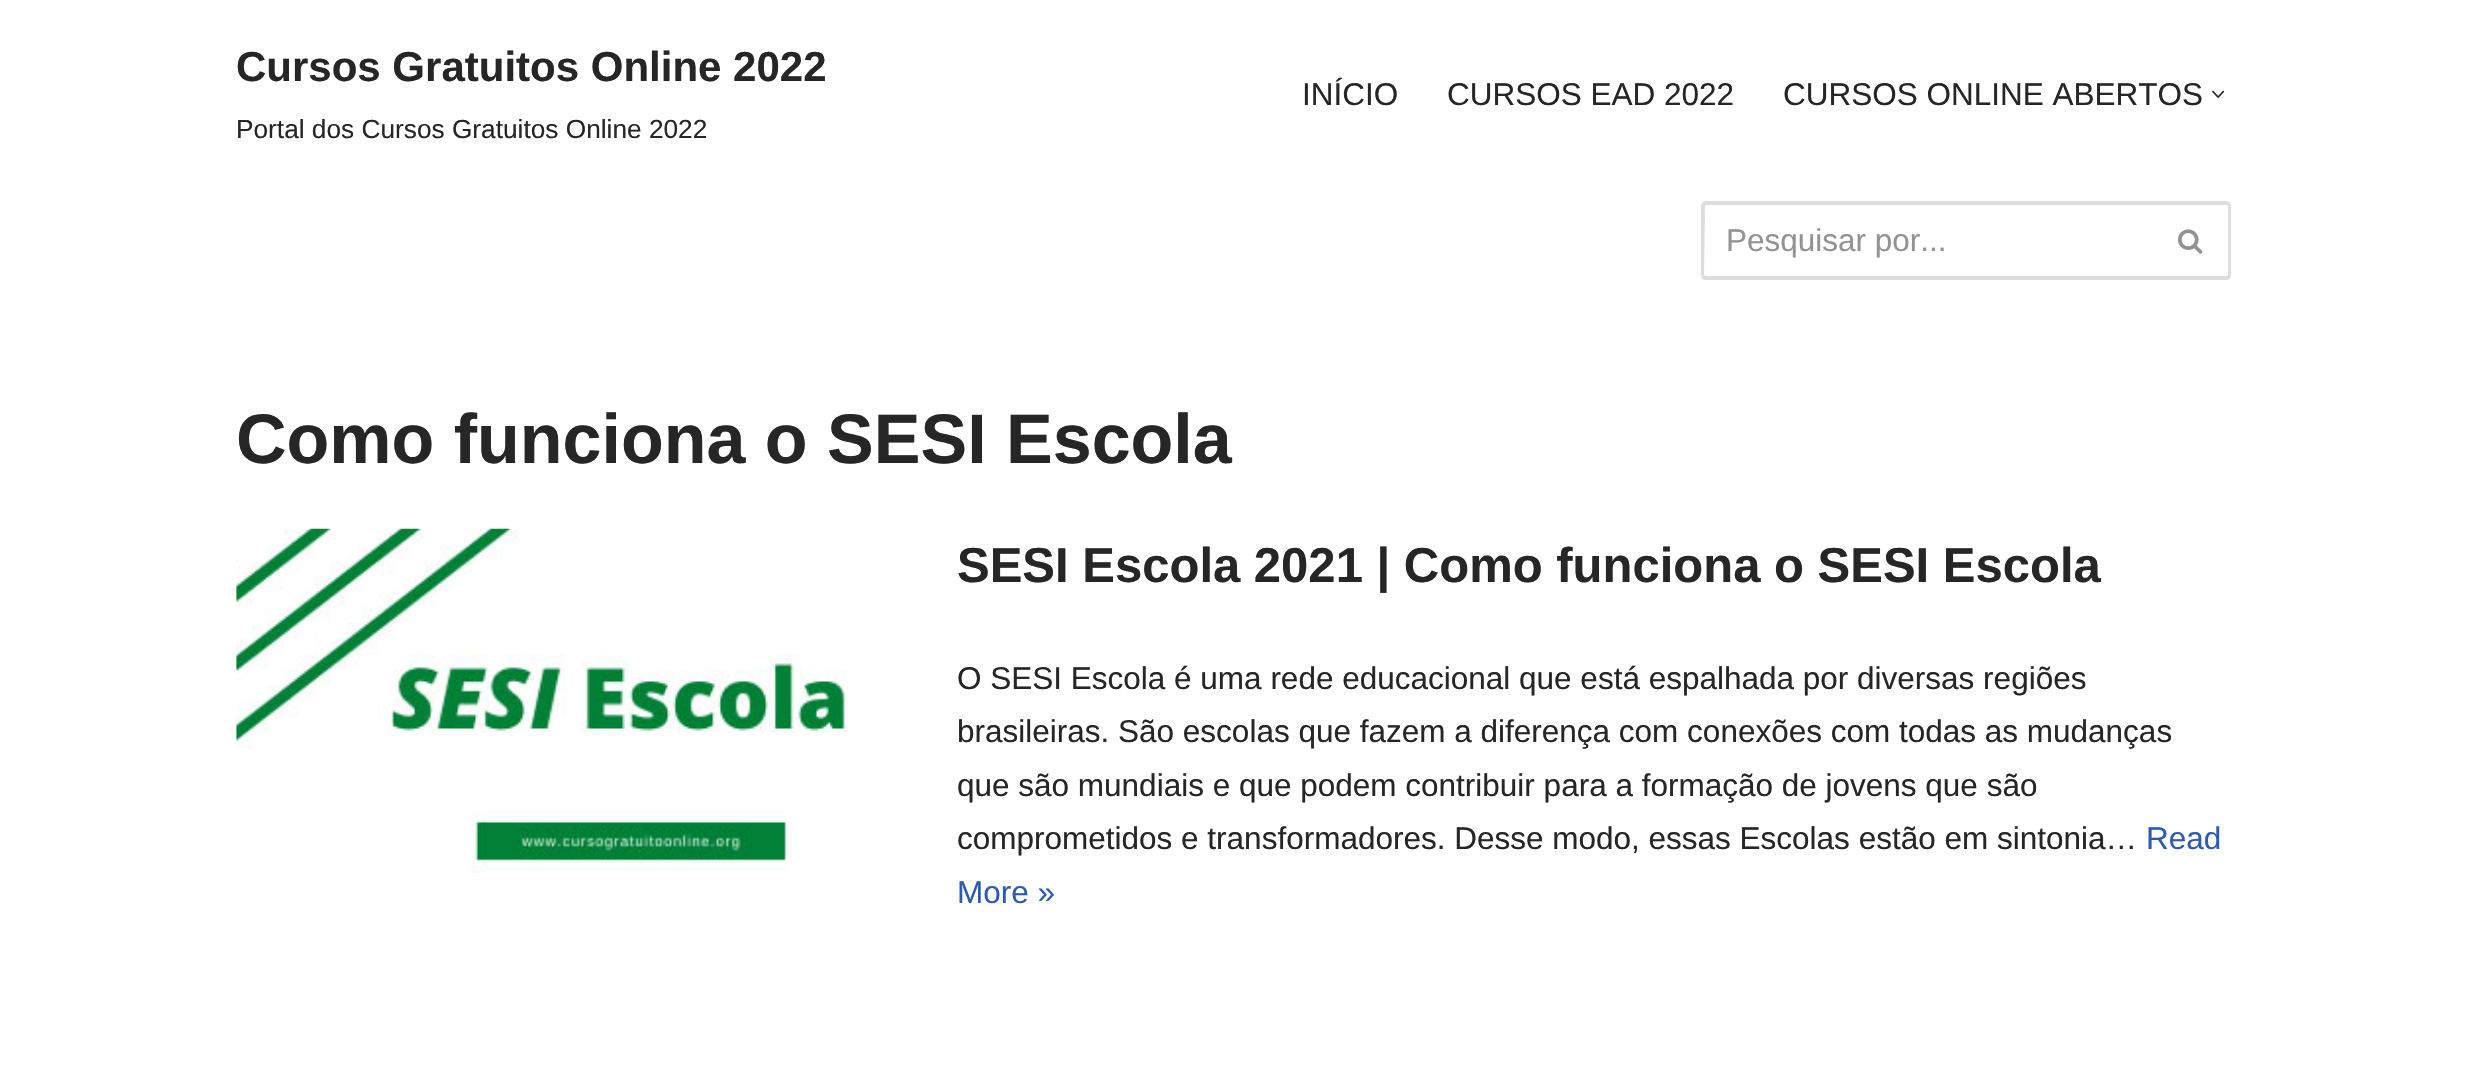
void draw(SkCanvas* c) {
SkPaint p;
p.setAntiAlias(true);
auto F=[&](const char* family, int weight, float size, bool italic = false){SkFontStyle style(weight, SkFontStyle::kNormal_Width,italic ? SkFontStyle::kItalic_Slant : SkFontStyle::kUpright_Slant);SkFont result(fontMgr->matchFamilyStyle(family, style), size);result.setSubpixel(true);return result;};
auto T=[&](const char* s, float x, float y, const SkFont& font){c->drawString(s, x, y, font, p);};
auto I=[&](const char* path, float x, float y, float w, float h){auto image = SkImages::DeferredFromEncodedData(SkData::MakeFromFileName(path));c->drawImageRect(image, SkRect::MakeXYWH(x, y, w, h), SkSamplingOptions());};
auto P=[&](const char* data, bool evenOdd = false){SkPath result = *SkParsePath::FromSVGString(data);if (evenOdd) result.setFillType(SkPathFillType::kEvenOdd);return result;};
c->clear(0xffffffff);
auto f1 = F("Liberation Sans",700,42);
p.setColor(0xff272626);
T("Cursos Gratuitos Online 2022",236,81,f1);
auto f2 = F("Liberation Sans",400,26.25);
T("Portal dos Cursos Gratuitos Online 2022",236,138,f2);
auto f3 = F("Liberation Sans",400,31.5);
T("INÍCIO",1302,105,f3);
T("CURSOS EAD 2022",1447,105,f3);
T("CURSOS ONLINE ABERTOS",1783,105,f3);
I("1.png",2212,90,12,8);
p.setColor(0xffdddddd);
c->drawPath(P("M1706 201h446v79h-446c-3 0-5-2-5-5v-69c0-2 2-5 5-5zm0 4h446v71h-446c-1 0-1 0-2-1l1-69z",true),p);
p.setColor(0xff939393);
T("Pesquisar por...",1726,251,f3);
p.setColor(0xffdddddd);
c->drawPath(P("M2152 201h74c3 0 5 3 5 5v69c0 3-2 5-5 5h-74zm0 4h74c1 0 2 1 2 1v69c0 1-1 1-2 1h-74z",true),p);
I("2.png",2178,229,25,25);
auto f4 = F("Liberation Sans",700,70);
p.setColor(0xff272626);
T("Como funciona o SESI Escola",236,463,f4);
I("3.png",236,528,612,345);
auto f5 = F("Liberation Sans",700,49);
T("SESI Escola 2021 | Como funciona o SESI Escola",957,582,f5);
T("O SESI Escola é uma rede educacional que está espalhada por diversas regiões",957,689,f3);
T("brasileiras. São escolas que fazem a diferença com conexões com todas as mudanças",957,742,f3);
T("que são mundiais e que podem contribuir para a formação de jovens que são",957,796,f3);
T("comprometidos e transformadores. Desse modo, essas Escolas estão em sintonia…",957,849,f3);
p.setColor(0xff2f5aae);
T("Read",2146,849,f3);
T("More »",957,903,f3);
}
